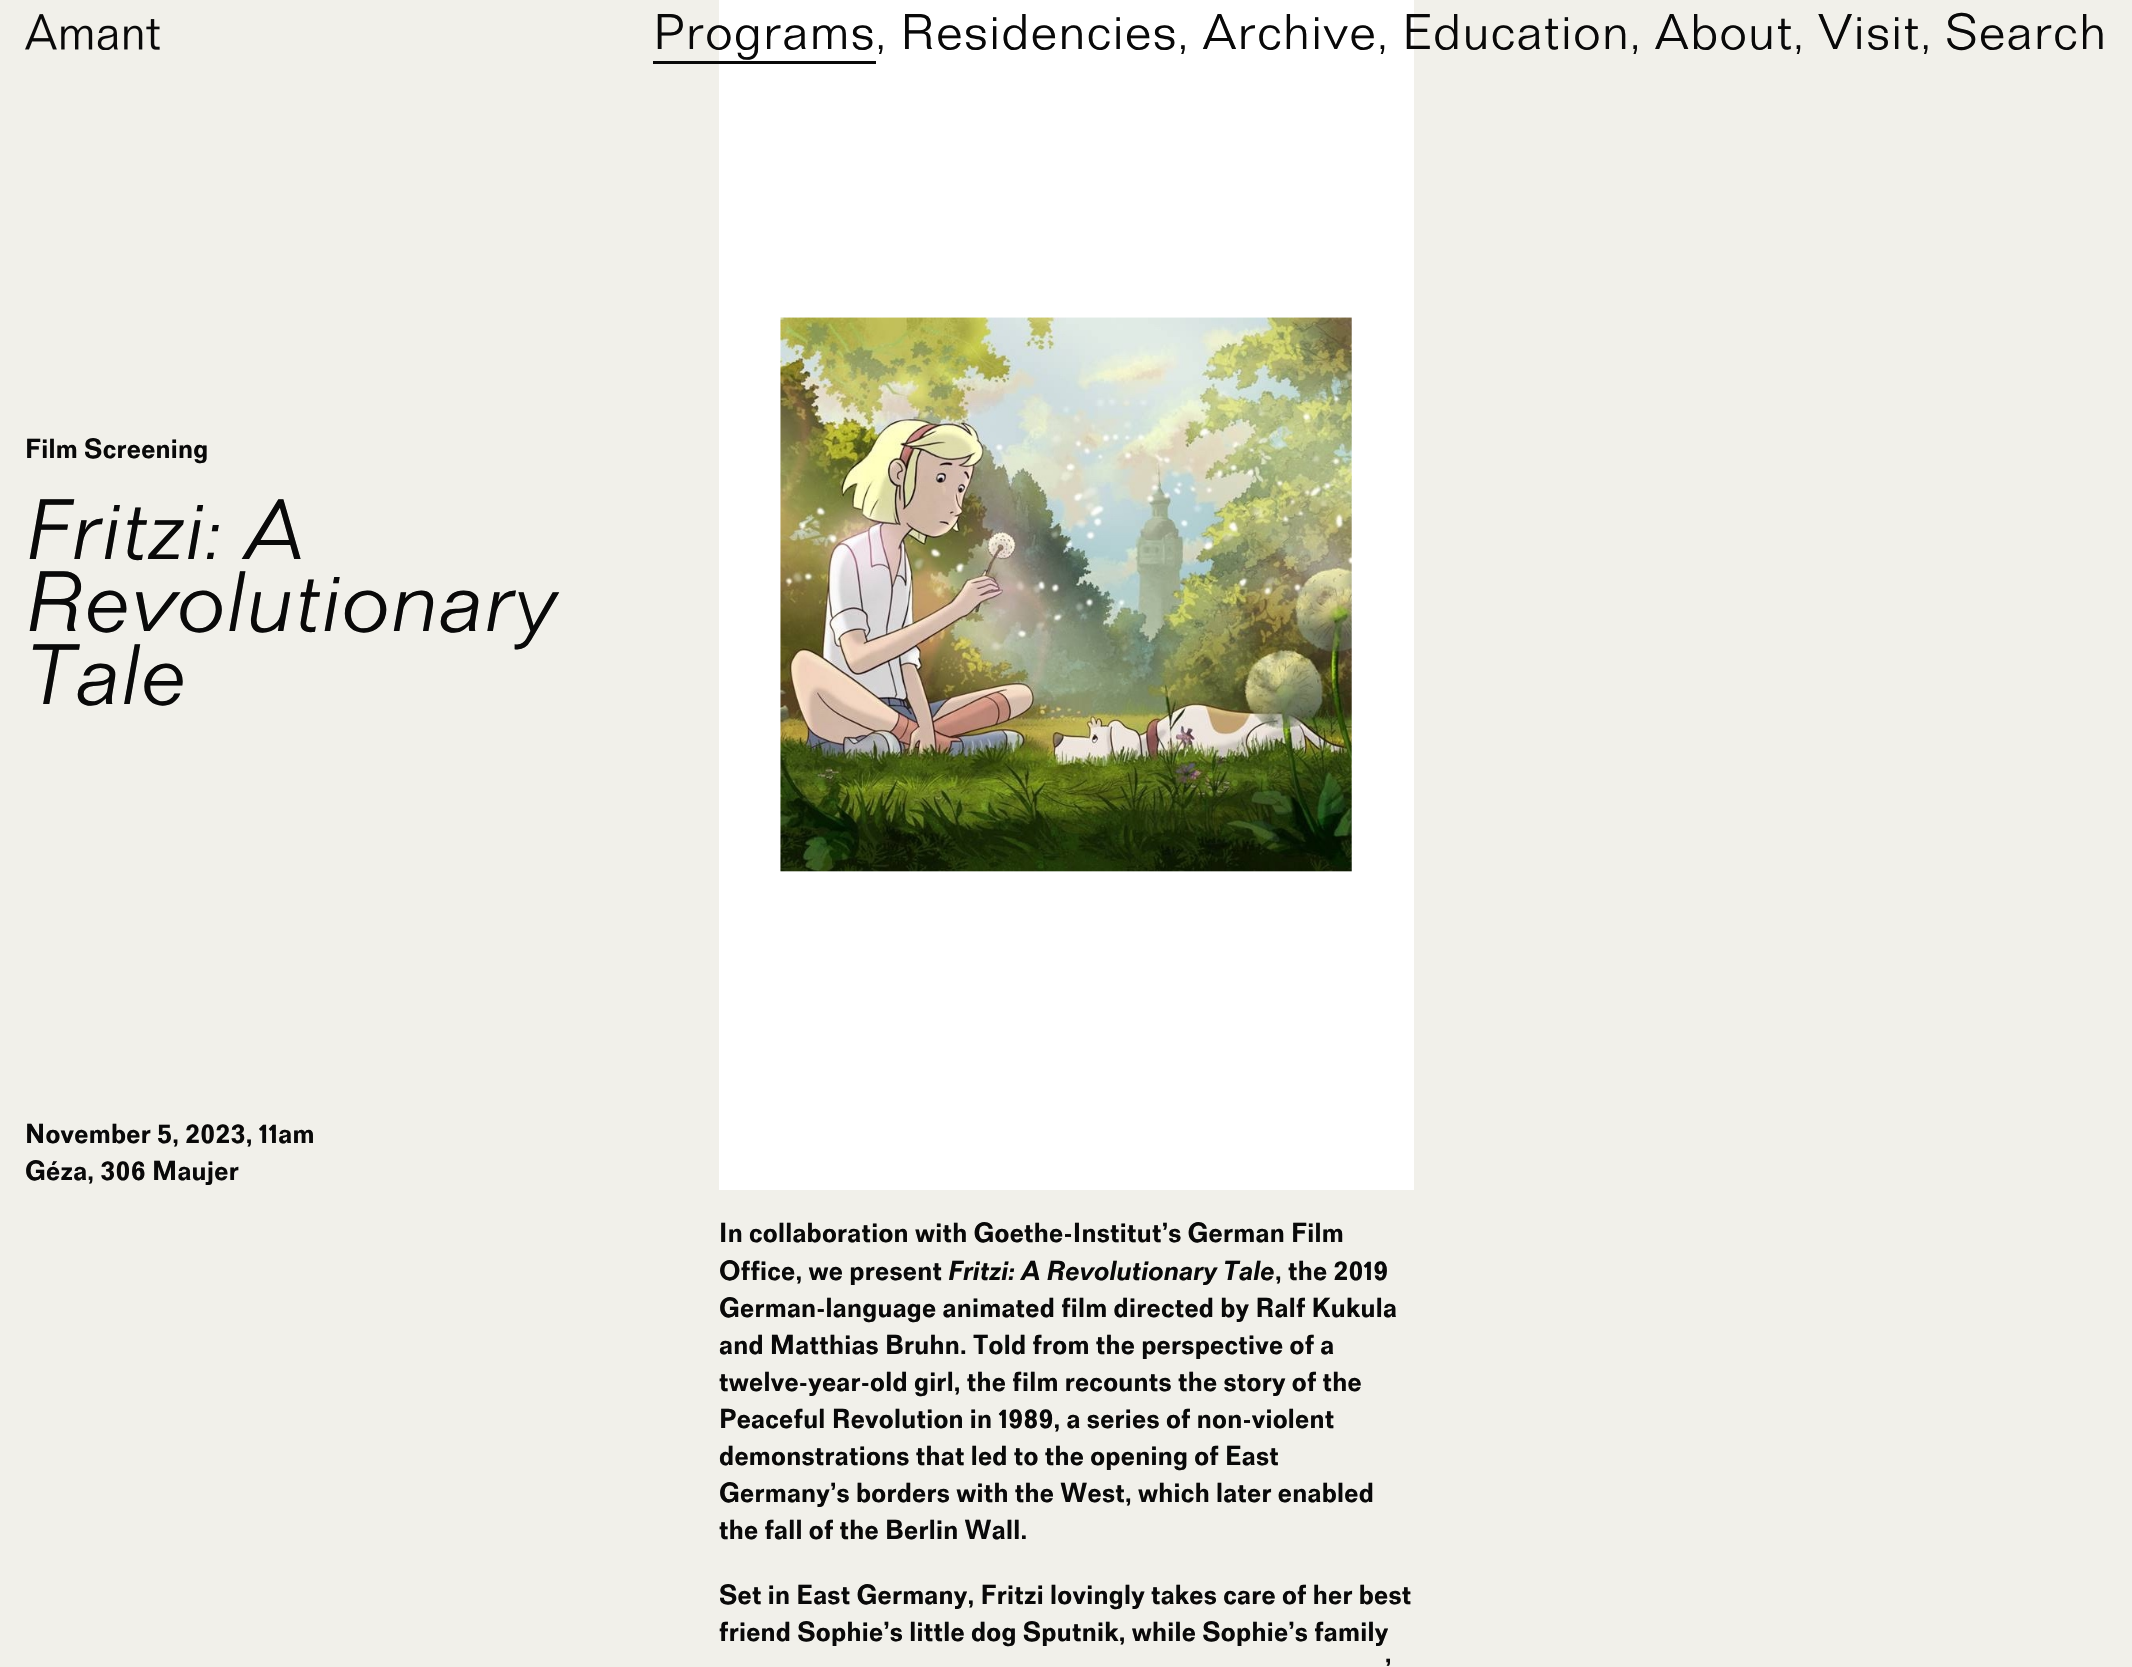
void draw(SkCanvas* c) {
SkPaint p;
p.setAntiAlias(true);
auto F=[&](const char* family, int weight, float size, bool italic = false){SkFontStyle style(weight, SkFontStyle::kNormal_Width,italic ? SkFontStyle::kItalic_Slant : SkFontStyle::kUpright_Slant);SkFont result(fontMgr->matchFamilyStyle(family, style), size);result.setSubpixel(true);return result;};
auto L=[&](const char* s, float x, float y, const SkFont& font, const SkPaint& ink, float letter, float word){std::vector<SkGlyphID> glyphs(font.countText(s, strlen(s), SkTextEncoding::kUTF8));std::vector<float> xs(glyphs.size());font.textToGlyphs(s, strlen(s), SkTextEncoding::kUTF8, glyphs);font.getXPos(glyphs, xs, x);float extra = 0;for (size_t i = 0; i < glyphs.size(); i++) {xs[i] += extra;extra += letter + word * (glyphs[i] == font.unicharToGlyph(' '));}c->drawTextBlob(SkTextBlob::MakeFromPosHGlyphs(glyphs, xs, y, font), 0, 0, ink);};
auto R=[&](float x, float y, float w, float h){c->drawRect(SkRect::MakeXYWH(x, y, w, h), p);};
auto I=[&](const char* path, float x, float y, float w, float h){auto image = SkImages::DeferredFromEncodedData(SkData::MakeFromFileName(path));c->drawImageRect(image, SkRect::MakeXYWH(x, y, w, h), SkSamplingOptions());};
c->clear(0xfff1f0ea);
I("1.png",25,14,135,36);
p.setColor(0xffffffff);
R(719,0,695,1190);
auto f1 = F("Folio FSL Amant",300,50);
p.setColor(0xff090909);
L("Programs, Residencies, Archive, Education, About, Visit, Search",653,49,f1,p,1.5,0);
R(653,61,223,3);
auto f2 = F("Folio FSL Amant",600,27.5);
L("Film Screening",25,458,f2,p,.28,0);
auto f3 = F("Folio FSL Amant",300,85.25,true);
L("Fritzi: A",25,559,f3,p,1.75,0);
L("Revolutionary",25,631,f3,p,1.75,0);
L("Tale",25,704,f3,p,1.75,0);
L("November 5, 2023, 11am",25,1143,f2,p,.28,0);
L("Géza, 306 Maujer",25,1180,f2,p,.28,0);
I("2.png",780,317,572,555);
L("In collaboration with Goethe-Institut’s German Film",719,1242,f2,p,.28,0);
L("Office, we present",719,1280,f2,p,.28,0);
auto f4 = F("Folio FSL Amant",600,27.5,true);
L("Fritzi: A Revolutionary Tale",948,1280,f4,p,.28,0);
L(", the 2019",1275,1280,f2,p,.28,0);
L("German-language animated film directed by Ralf Kukula",719,1317,f2,p,.28,0);
L("and Matthias Bruhn. Told from the perspective of a",719,1354,f2,p,.28,0);
L("twelve-year-old girl, the film recounts the story of the",719,1391,f2,p,.28,0);
L("Peaceful Revolution in 1989, a series of non-violent",719,1428,f2,p,.28,0);
L("demonstrations that led to the opening of East",719,1465,f2,p,.28,0);
L("Germany’s borders with the West, which later enabled",719,1502,f2,p,.28,0);
L("the fall of the Berlin Wall.",719,1539,f2,p,.28,0);
L("Set in East Germany, Fritzi lovingly takes care of her best",719,1604,f2,p,.28,0);
L("friend Sophie’s little dog Sputnik, while Sophie’s family",719,1641,f2,p,.28,0);
L("’",1385,1678,f2,p,.28,0);
}
